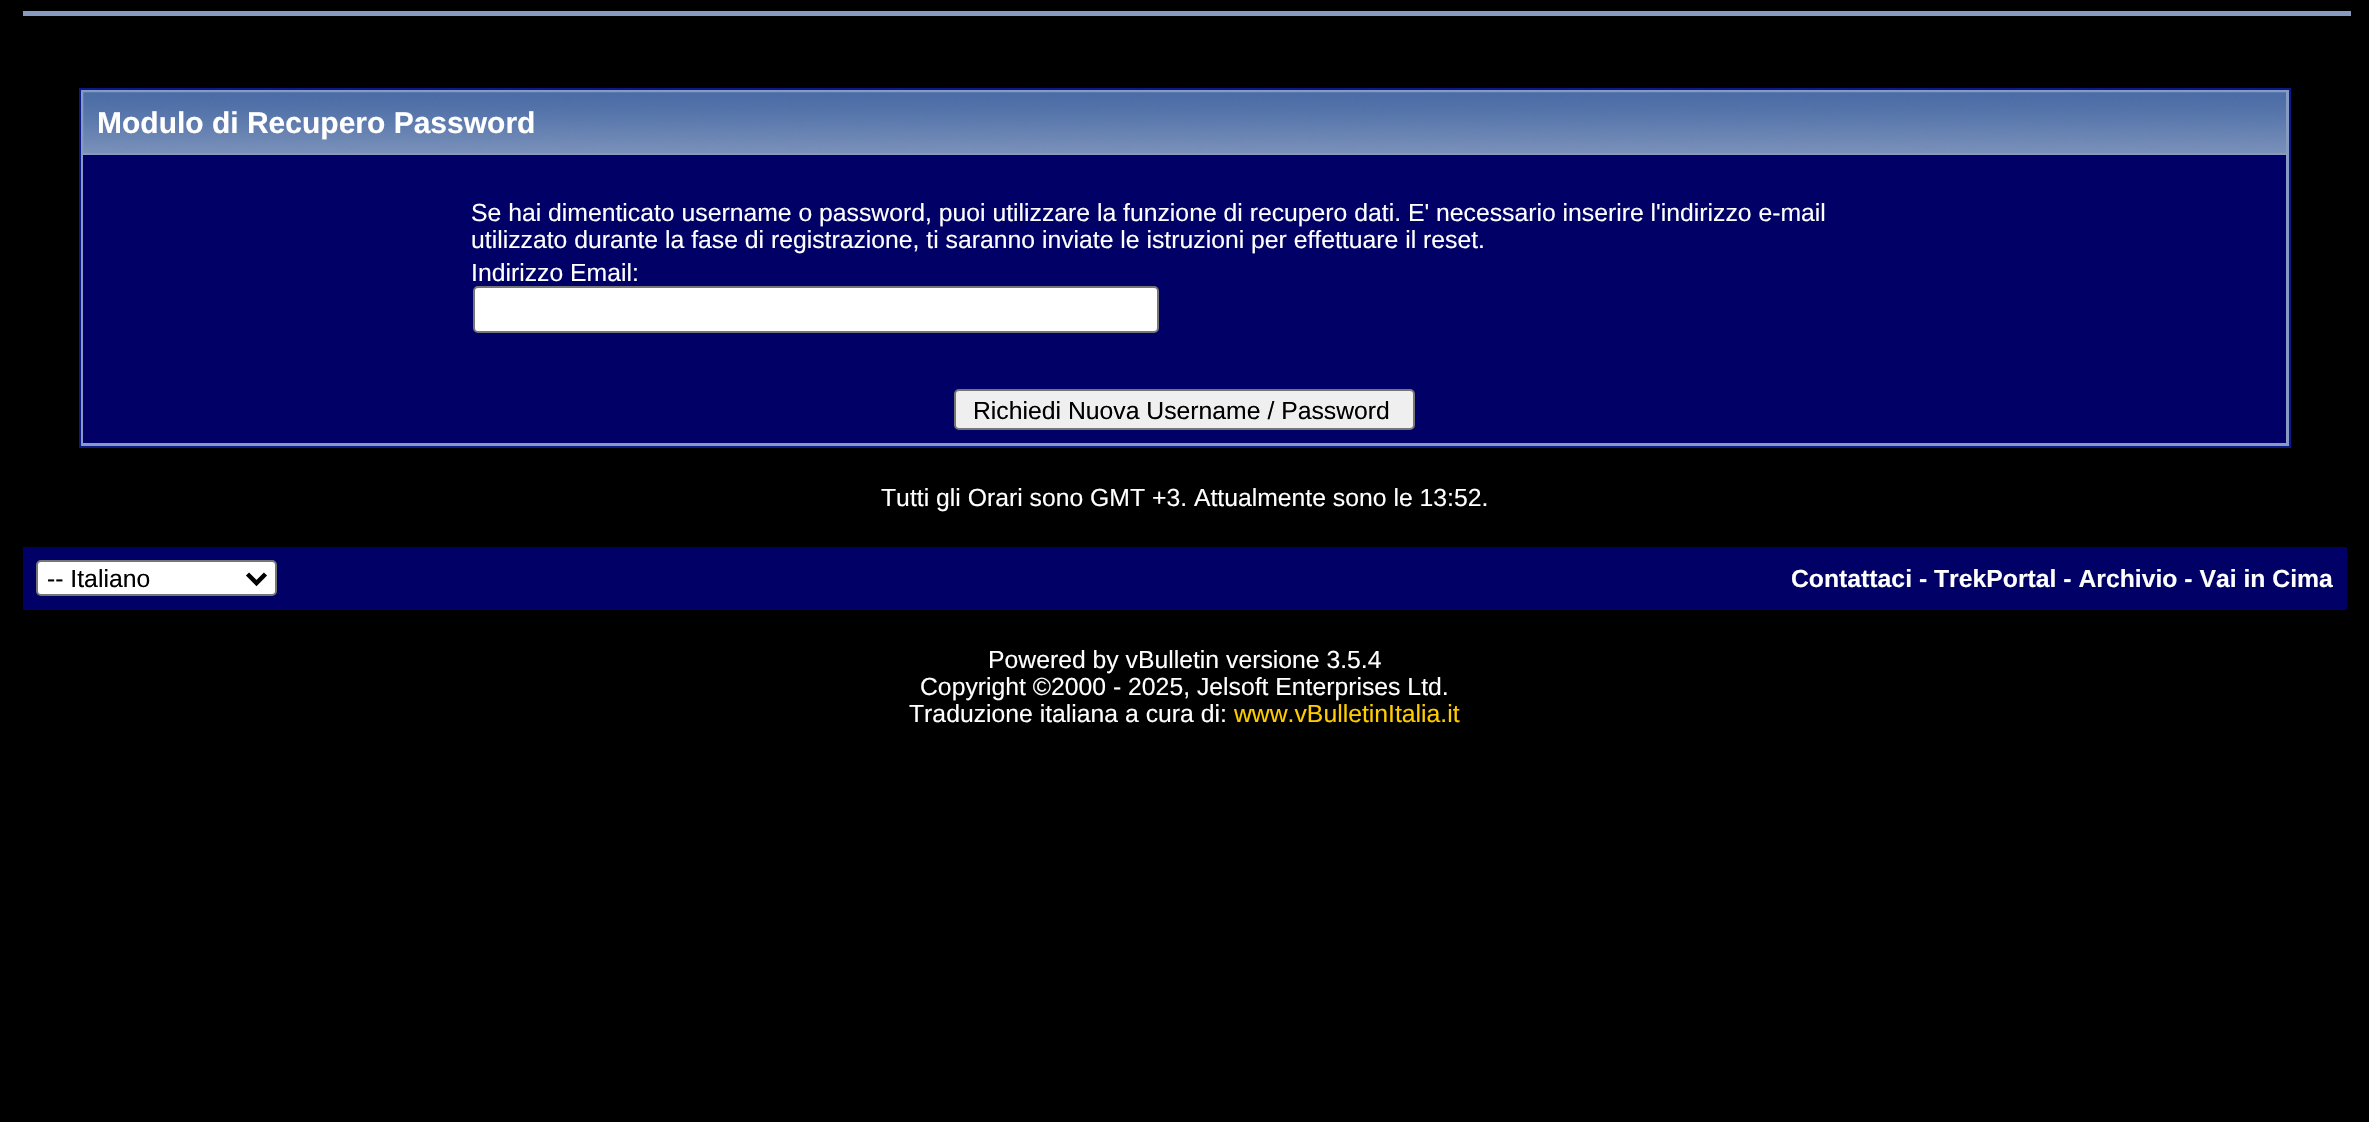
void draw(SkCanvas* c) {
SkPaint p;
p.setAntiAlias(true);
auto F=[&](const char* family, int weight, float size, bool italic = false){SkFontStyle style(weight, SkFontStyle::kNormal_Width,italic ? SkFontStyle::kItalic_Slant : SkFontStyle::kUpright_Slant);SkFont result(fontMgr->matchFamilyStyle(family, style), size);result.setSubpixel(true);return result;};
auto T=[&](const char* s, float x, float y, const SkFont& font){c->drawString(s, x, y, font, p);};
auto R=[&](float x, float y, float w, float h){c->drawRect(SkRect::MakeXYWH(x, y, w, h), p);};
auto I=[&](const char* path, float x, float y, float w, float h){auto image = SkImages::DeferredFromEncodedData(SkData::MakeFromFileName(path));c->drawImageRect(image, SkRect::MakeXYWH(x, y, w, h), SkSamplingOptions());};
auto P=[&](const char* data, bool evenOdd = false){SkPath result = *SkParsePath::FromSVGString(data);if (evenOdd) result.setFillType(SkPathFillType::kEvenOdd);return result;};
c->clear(0xff000000);
p.setColor(0xff869bbf);
R(23,11,2328,5);
c->drawRect(SkRect::MakeXYWH(80,89,2210,358),p);
p.setStroke(true);
p.setStrokeWidth(2);
p.setColor(0xff0b198c);
c->drawRect(SkRect::MakeXYWH(80,89,2210,358),p);
I("1.png",83,92,2203,61);
auto f1 = F("Liberation Sans",700,30);
p.setStroke(false);
p.setColor(0xffffffff);
T("Modulo di Recupero Password",97,133,f1);
p.setColor(0xff000066);
R(83,155,2203,288);
auto f2 = F("Liberation Sans",400,24.75);
p.setColor(0xffffffff);
T("Se hai dimenticato username o password, puoi utilizzare la funzione di recupero dati. E' necessario inserire l'indirizzo e-mail",471,221,f2);
T("utilizzato durante la fase di registrazione, ti saranno inviate le istruzioni per effettuare il reset.",471,248,f2);
T("Indirizzo Email:",471,281,f2);
c->drawRoundRect(SkRect::MakeXYWH(474,287,684,45),4,4,p);
p.setStroke(true);
p.setColor(0xff767676);
c->drawRoundRect(SkRect::MakeXYWH(474,287,684,45),4,4,p);
p.setStroke(false);
p.setColor(0xffefefef);
c->drawRoundRect(SkRect::MakeXYWH(955,390,459,39),4,4,p);
p.setStroke(true);
p.setColor(0xff767676);
c->drawRoundRect(SkRect::MakeXYWH(955,390,459,39),4,4,p);
p.setStroke(false);
p.setColor(0xff000000);
T("Richiedi Nuova Username / Password",973,419,f2);
p.setColor(0xffffffff);
T("Tutti gli Orari sono GMT +3. Attualmente sono le 13:52.",881,506,f2);
p.setColor(0xff000066);
R(23,547,2324,63);
p.setColor(0xffffffff);
c->drawRoundRect(SkRect::MakeXYWH(37,561,239,34),4,4,p);
p.setStroke(true);
p.setColor(0xff767676);
c->drawRoundRect(SkRect::MakeXYWH(37,561,239,34),4,4,p);
p.setStrokeWidth(4.5);
p.setColor(0xff000000);
c->drawPath(P("M247.5 574l9 9l9-9"),p);
p.setStroke(false);
T("-- Italiano",47,587,f2);
auto f3 = F("Liberation Sans",700,24.75);
p.setColor(0xffffffff);
T("Contattaci - TrekPortal - Archivio - Vai in Cima",1791,587,f3);
T("Powered by vBulletin versione 3.5.4",988,668,f2);
T("Copyright ©2000 - 2025, Jelsoft Enterprises Ltd.",920,695,f2);
T("Traduzione italiana a cura di:",909,722,f2);
p.setColor(0xffffcc00);
T("www.vBulletinItalia.it",1234,722,f2);
}
